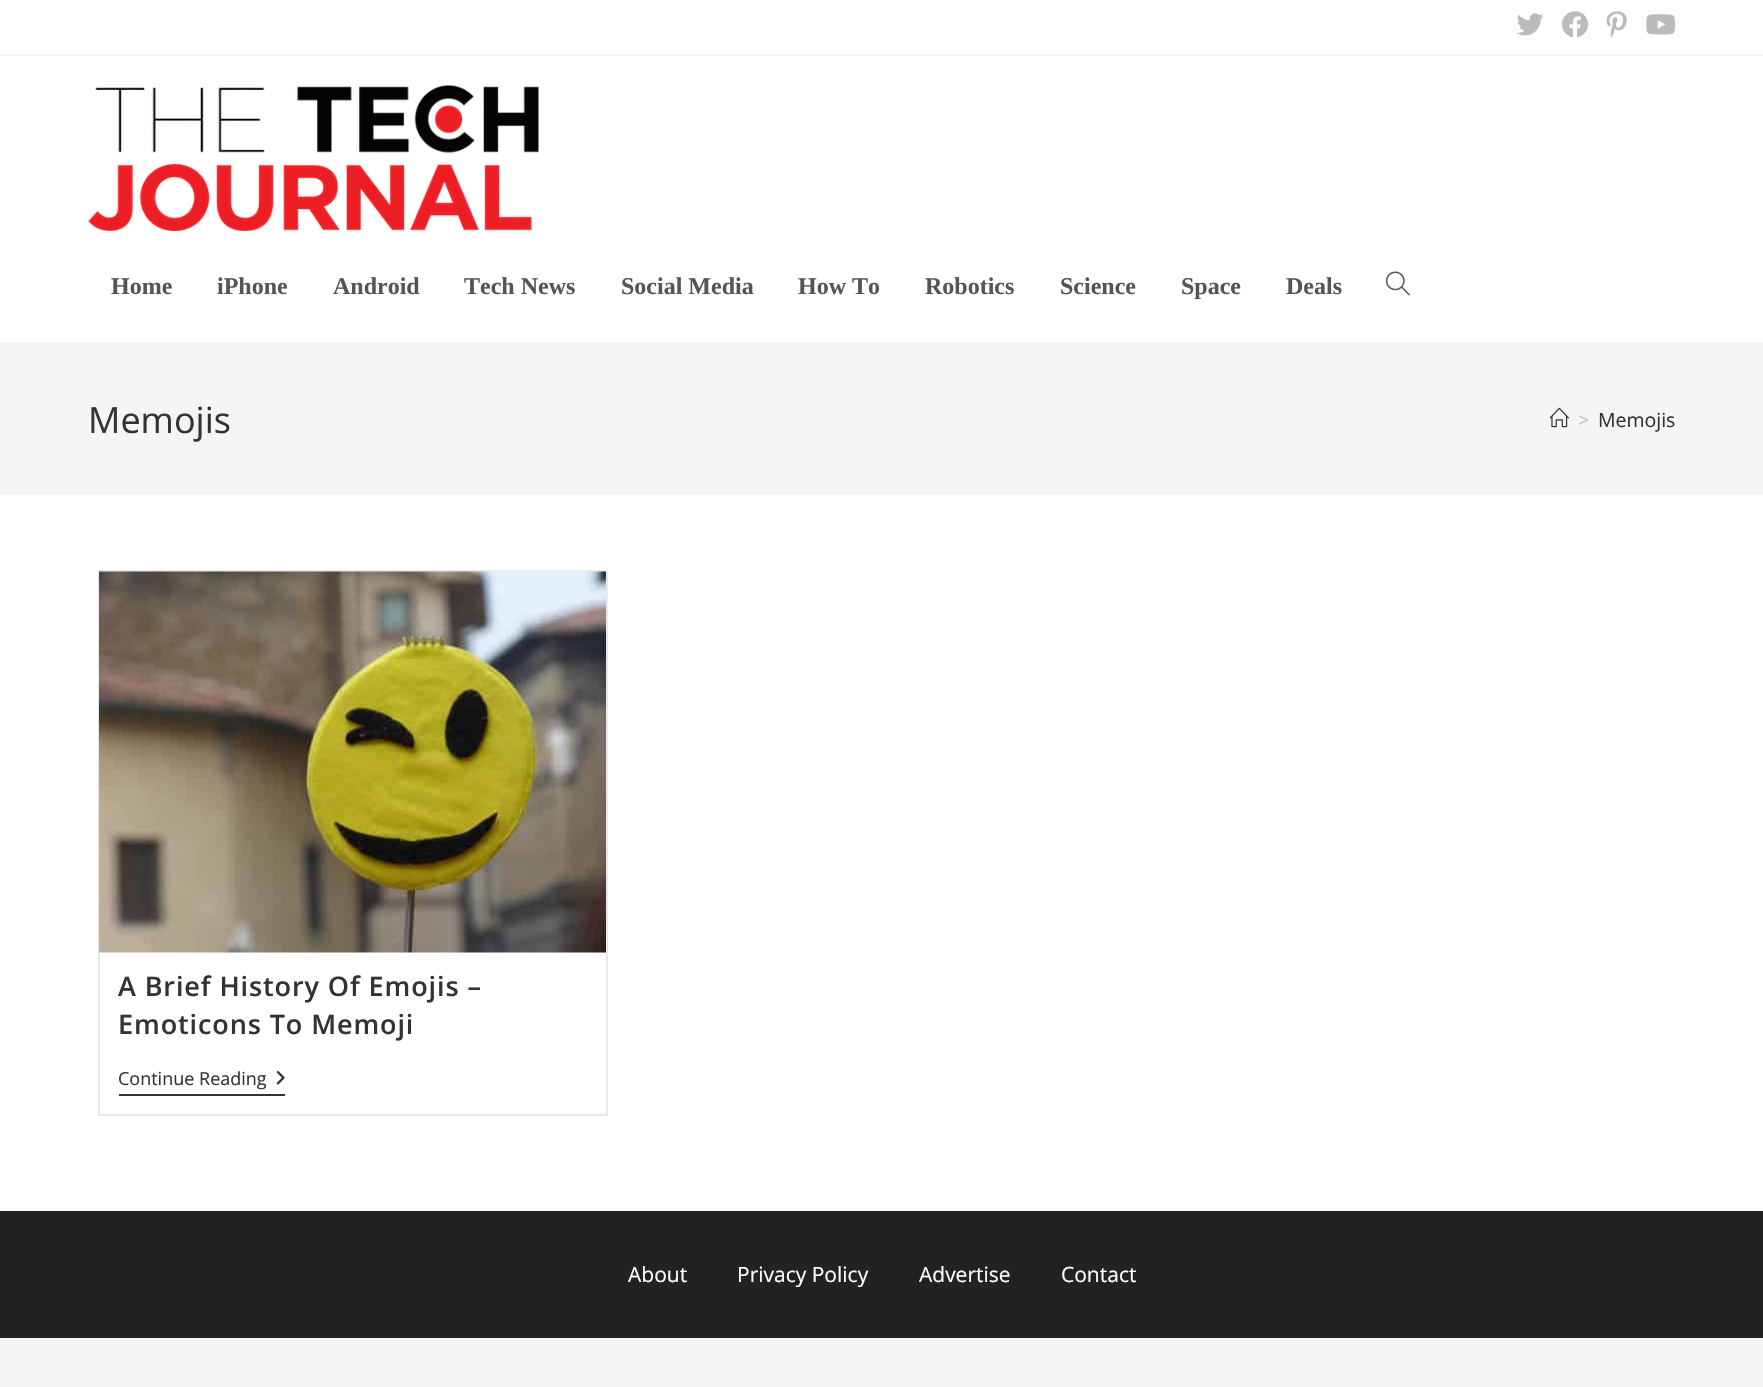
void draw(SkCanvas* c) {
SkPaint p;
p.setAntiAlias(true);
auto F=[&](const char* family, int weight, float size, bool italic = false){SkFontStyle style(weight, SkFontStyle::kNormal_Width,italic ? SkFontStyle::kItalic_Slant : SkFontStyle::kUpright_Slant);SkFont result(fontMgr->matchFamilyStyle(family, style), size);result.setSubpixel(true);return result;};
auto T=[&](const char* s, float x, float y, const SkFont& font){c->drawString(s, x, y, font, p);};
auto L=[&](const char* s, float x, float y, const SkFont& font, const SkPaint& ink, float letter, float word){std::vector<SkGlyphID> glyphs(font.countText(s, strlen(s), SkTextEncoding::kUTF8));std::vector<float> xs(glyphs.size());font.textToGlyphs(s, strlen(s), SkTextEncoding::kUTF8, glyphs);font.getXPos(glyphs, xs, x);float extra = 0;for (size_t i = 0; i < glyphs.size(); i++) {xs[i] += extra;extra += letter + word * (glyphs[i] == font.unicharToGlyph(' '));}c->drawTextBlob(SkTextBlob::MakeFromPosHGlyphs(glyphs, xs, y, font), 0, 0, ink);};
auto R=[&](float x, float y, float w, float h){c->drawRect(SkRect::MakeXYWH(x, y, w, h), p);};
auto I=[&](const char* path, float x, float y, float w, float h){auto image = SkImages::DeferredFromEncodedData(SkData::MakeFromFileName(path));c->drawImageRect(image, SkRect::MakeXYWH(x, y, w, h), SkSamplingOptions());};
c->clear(0xffffffff);
p.setColor(0xfff1f1f1);
R(0,54,1763,2);
I("1.png",1517,13,27,23);
I("2.png",1562,11,26,27);
I("3.png",1606,11,21,27);
I("4.png",1646,14,30,21);
R(0,342,1763,2);
I("5.png",88,85,451,146);
auto f1 = F("Liberation Serif",700,24);
p.setColor(0xff555555);
T("Home",111,294,f1);
T("iPhone",217,294,f1);
T("Android",333,294,f1);
T("Tech News",464,294,f1);
T("Social Media",621,294,f1);
T("How To",798,294,f1);
T("Robotics",925,294,f1);
T("Science",1060,294,f1);
T("Space",1181,294,f1);
T("Deals",1286,294,f1);
I("6.png",1385,271,25,25);
p.setColor(0xfff5f5f5);
R(0,344,1763,151);
auto f2 = F("Open Sans",400,36);
p.setColor(0xff333333);
T("Memojis",88,433,f2);
I("7.png",1550,407,19,21);
auto f3 = F("Open Sans",400,19.5);
p.setColor(0xffc6c6c6);
T(">",1578,427,f3);
p.setColor(0xff333333);
T("Memojis",1598,427,f3);
p.setStroke(true);
p.setStrokeWidth(2);
p.setColor(0xffe9e9e9);
c->drawRect(SkRect::MakeXYWH(99,571,508,544),p);
I("8.png",99,571,507,382);
auto f4 = F("Open Sans",600,27);
p.setStroke(false);
p.setColor(0xff333333);
L("A Brief History Of Emojis –",118,996,f4,p,.9,0);
L("Emoticons To Memoji",118,1034,f4,p,.9,0);
R(119,1094,166,2);
auto f5 = F("Open Sans",400,18);
T("Continue Reading",118,1085,f5);
I("9.png",276,1071,9,14);
p.setColor(0xff222222);
R(0,1211,1763,127);
auto f6 = F("Open Sans",400,21);
p.setColor(0xffffffff);
T("About",628,1282,f6);
T("Privacy Policy",737,1282,f6);
T("Advertise",919,1282,f6);
T("Contact",1061,1282,f6);
p.setColor(0xfff5f5f5);
R(0,1338,1763,49);
}
